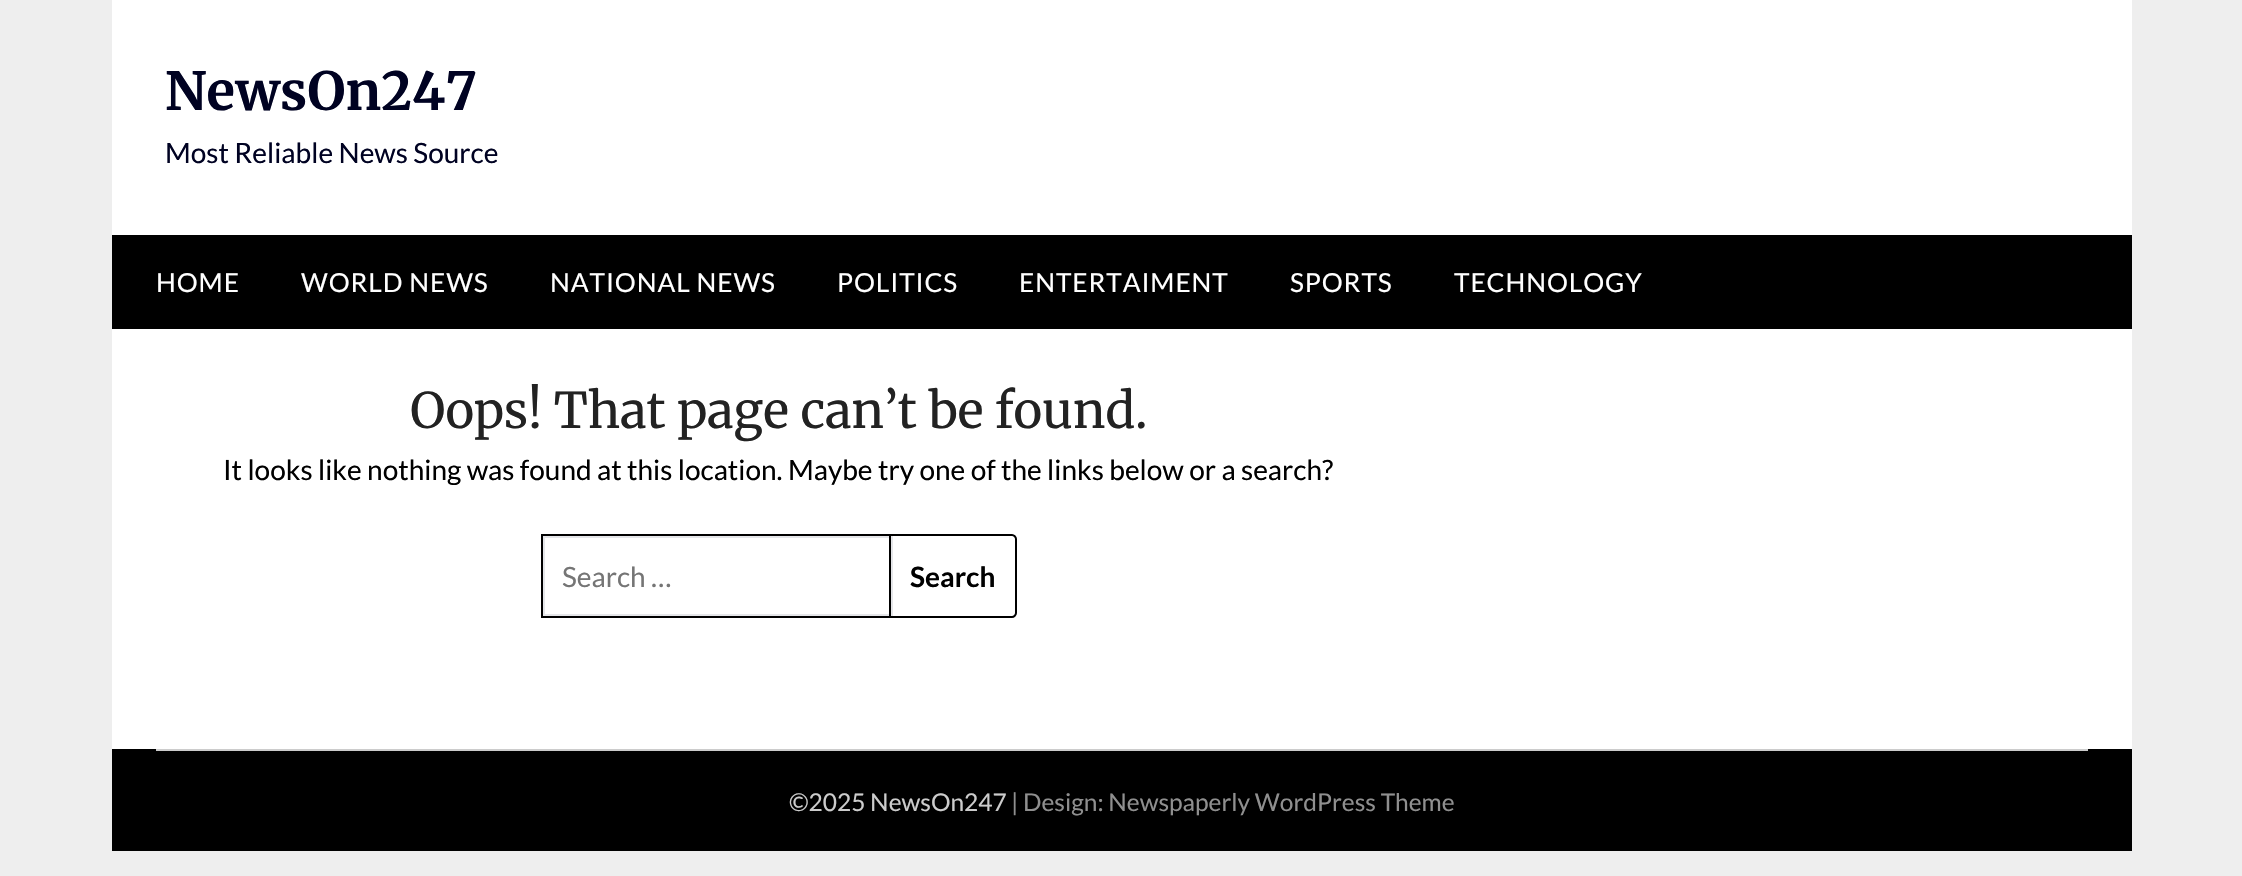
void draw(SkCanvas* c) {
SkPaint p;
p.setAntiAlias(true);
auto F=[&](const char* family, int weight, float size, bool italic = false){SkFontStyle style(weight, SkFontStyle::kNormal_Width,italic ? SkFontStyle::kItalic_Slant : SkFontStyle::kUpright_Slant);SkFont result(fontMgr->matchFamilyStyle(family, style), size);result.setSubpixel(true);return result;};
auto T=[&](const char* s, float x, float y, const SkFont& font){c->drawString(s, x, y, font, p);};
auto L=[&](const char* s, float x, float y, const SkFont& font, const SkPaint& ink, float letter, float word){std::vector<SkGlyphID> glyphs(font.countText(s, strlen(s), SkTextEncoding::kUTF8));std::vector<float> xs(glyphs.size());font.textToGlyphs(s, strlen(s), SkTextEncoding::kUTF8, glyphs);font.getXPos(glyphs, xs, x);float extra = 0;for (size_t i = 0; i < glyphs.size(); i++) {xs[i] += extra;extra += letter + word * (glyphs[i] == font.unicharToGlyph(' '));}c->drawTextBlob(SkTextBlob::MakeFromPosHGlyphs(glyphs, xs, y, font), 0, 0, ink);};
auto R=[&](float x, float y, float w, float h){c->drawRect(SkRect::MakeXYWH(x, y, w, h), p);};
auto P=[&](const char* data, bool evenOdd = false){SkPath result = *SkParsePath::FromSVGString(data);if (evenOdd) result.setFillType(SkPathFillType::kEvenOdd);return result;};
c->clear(0xffeeeeee);
p.setColor(0xffffffff);
R(112,0,2020,235);
auto f1 = F("Merriweather",700,52.5);
p.setColor(0xff000222);
T("NewsOn247",165,110,f1);
auto f2 = F("Lato",400,28);
T("Most Reliable News Source",165,163,f2);
p.setColor(0xff000000);
R(112,235,2020,94);
auto f3 = F("Lato",400,26.25);
p.setColor(0xffffffff);
L("HOME",156,292,f3,p,.9,0);
L("WORLD NEWS",301,292,f3,p,.9,0);
L("NATIONAL NEWS",550,292,f3,p,.9,0);
L("POLITICS",837,292,f3,p,.9,0);
L("ENTERTAIMENT",1019,292,f3,p,.9,0);
L("SPORTS",1290,292,f3,p,.9,0);
L("TECHNOLOGY",1454,292,f3,p,.9,0);
R(112,329,2020,420);
auto f4 = F("Merriweather",400,49);
p.setColor(0xff222222);
T("Oops! That page can’t be found.",410,428,f4);
p.setColor(0xff000000);
T("It looks like nothing was found at this location. Maybe try one of the links below or a search?",223,480,f2);
R(541,534,352,2);
R(541,616,352,2);
R(541,534,2,84);
p.setStroke(true);
p.setStrokeWidth(2);
p.setColor(0xffe5e6e9);
c->drawRect(SkRect::MakeXYWH(544,537,348,78),p);
p.setStroke(false);
p.setColor(0xff757575);
T("Search …",562,587,f2);
p.setStroke(true);
p.setColor(0xff000000);
c->drawPath(P("M890 535h122c2 0 4 2 4 4v74c0 2-2 4-4 4h-122z"),p);
auto f5 = F("Lato",700,28);
p.setStroke(false);
T("Search",910,587,f5);
R(112,749,2020,102);
p.setColor(0xffcccccc);
R(156,749,1932,2);
auto f6 = F("Lato",400,24.5);
T("©2025 NewsOn247",789,811,f6);
p.setColor(0xff8f8f8f);
T("| Design: Newspaperly WordPress Theme",1011,811,f6);
}
